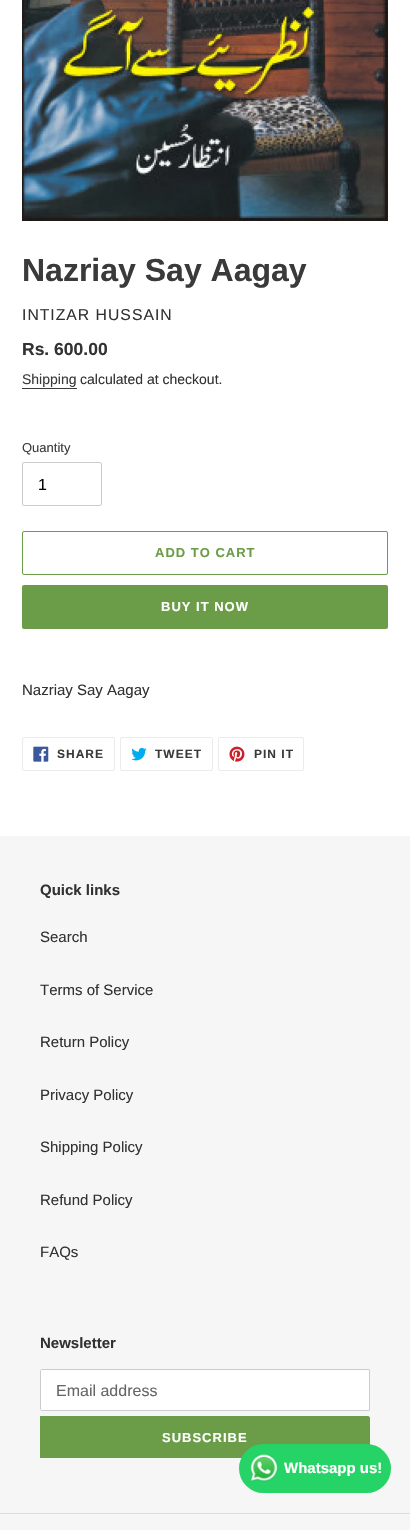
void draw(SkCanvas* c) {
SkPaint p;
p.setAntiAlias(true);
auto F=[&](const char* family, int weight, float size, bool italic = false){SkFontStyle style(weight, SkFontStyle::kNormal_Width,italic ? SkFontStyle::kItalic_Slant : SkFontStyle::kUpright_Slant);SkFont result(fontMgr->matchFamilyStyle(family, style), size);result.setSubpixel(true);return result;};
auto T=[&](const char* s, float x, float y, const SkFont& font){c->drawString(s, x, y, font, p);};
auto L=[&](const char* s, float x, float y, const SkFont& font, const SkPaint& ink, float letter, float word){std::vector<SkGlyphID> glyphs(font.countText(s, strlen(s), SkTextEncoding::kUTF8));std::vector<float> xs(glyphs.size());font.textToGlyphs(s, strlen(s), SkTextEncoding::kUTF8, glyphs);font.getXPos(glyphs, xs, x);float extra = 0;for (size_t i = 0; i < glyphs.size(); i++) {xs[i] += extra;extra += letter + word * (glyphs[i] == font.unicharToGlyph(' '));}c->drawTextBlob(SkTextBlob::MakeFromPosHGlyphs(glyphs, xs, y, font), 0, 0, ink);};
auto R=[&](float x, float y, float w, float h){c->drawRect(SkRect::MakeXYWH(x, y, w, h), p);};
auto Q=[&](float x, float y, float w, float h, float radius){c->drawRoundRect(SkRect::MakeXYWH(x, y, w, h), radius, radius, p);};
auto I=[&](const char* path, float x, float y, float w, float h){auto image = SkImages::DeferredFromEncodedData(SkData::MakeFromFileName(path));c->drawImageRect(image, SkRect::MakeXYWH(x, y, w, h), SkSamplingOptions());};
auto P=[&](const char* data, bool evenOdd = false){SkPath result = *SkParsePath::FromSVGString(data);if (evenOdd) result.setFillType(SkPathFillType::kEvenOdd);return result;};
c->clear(0xffffffff);
I("1.png",22,0,366,221);
auto f1 = F("Liberation Sans",700,32);
p.setColor(0xff3a3a3a);
T("Nazriay Say Aagay",22,281,f1);
auto f2 = F("Liberation Sans",400,15.75);
p.setColor(0xff333232);
L("INTIZAR HUSSAIN",22,320,f2,p,1,0);
auto f3 = F("Liberation Sans",700,17.5);
T("Rs. 600.00",22,355,f3);
auto f4 = F("Liberation Sans",400,14);
p.setColor(0xff3a3a3a);
T("Shipping",22,384,f4);
R(22,388,55,1);
p.setColor(0xff333232);
T("calculated at checkout.",80,384,f4);
auto f5 = F("Liberation Sans",400,13);
p.setColor(0xff3a3a3a);
T("Quantity",22,452,f5);
p.setStroke(true);
p.setStrokeWidth(1);
p.setColor(0xffcccccc);
c->drawRoundRect(SkRect::MakeXYWH(22.5,462.5,79,43),1.5,1.5,p);
auto f6 = F("Liberation Sans",400,16);
p.setStroke(false);
p.setColor(0xff000000);
T("1",38,490,f6);
p.setStroke(true);
p.setColor(0xff6b9d48);
c->drawRoundRect(SkRect::MakeXYWH(22.5,531.5,365,43),1.5,1.5,p);
auto f7 = F("Liberation Sans",700,13);
p.setStroke(false);
L("ADD TO CART",155,557,f7,p,1,0);
Q(22,585,366,44,2);
p.setColor(0xffffffff);
L("BUY IT NOW",161,611,f7,p,1,0);
auto f8 = F("Liberation Sans",400,15);
p.setColor(0xff333232);
T("Nazriay Say Aagay",22,695,f8);
p.setStroke(true);
p.setColor(0xffebebeb);
c->drawRoundRect(SkRect::MakeXYWH(22.5,737.5,92,33),1.5,1.5,p);
I("2.png",33,746,16,16);
auto f9 = F("Liberation Sans",700,12);
p.setStroke(false);
p.setColor(0xff3a3a3a);
L("SHARE",57,758,f9,p,1,0);
p.setStroke(true);
p.setColor(0xffebebeb);
c->drawRoundRect(SkRect::MakeXYWH(120.5,737.5,92,33),1.5,1.5,p);
I("3.png",131,747,16,14);
p.setStroke(false);
p.setColor(0xff3a3a3a);
L("TWEET",155,758,f9,p,1,0);
p.setStroke(true);
p.setColor(0xffebebeb);
c->drawRoundRect(SkRect::MakeXYWH(218.5,737.5,85,33),1.5,1.5,p);
I("4.png",229,746,16,16);
p.setStroke(false);
p.setColor(0xff3a3a3a);
L("PIN IT",254,758,f9,p,1,0);
p.setColor(0xfff6f6f6);
R(0,836,410,694);
auto f10 = F("Liberation Sans",700,15);
p.setColor(0xff333232);
T("Quick links",40,895,f10);
T("Search",40,942,f8);
T("Terms of Service",40,995,f8);
T("Return Policy",40,1047,f8);
T("Privacy Policy",40,1100,f8);
T("Shipping Policy",40,1152,f8);
T("Refund Policy",40,1205,f8);
T("FAQs",40,1257,f8);
T("Newsletter",40,1348,f10);
p.setColor(0xffffffff);
c->drawPath(P("M42 1369.5h327.5v41h-327.5c-1 0-1.5-.5-1.5-1.5v-38c0-1 .5-1.5 1.5-1.5z"),p);
p.setStroke(true);
p.setColor(0xffcccccc);
c->drawPath(P("M42 1369.5h327.5v41h-327.5c-1 0-1.5-.5-1.5-1.5v-38c0-1 .5-1.5 1.5-1.5z"),p);
p.setStroke(false);
p.setColor(0xff666666);
T("Email address",56,1396,f6);
p.setColor(0xff6b9d48);
c->drawPath(P("M40 1416h328c1 0 2 1 2 2v38c0 1-1 2-2 2h-328z"),p);
p.setColor(0xffffffff);
L("SUBSCRIBE",162,1442,f7,p,1,0);
p.setColor(0xffdddddd);
R(0,1513,410,1);
p.setColor(0xff25d366);
Q(239,1444,152,49,24.5);
I("5.png",250,1454,28,28);
p.setColor(0xffffffff);
T("Whatsapp us!",284,1473,f10);
}
